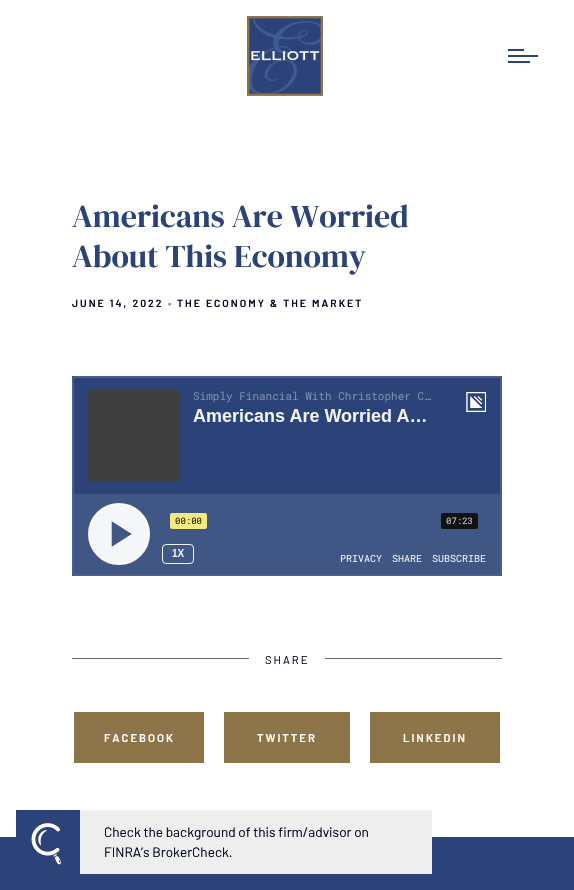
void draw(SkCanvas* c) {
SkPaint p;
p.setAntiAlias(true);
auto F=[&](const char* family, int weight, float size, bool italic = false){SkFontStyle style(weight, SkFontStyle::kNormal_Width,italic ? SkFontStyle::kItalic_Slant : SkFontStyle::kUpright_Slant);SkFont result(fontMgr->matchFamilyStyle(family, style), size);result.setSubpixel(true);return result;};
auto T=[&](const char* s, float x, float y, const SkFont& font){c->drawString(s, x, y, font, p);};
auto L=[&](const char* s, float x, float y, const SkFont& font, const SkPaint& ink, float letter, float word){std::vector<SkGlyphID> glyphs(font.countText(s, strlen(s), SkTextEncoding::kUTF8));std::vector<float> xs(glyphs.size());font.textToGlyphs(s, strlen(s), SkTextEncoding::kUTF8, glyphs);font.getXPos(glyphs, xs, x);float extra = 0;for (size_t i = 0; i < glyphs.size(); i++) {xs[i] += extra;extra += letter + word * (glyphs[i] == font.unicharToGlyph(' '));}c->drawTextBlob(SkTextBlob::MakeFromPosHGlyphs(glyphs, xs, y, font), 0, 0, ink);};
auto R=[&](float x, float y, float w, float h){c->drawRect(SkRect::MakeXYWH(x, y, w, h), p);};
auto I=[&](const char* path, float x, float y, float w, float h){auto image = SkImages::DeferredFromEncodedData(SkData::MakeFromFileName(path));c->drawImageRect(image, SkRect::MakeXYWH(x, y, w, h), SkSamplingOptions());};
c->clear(0xffffffff);
I("1.png",247,16,76,80);
p.setColor(0xff2b4378);
R(508,55,30,2);
R(508,49,16,2);
R(508,61,22,2);
auto f1 = F("DM Serif Display",400,32);
T("Americans Are Worried",72,227,f1);
T("About This Economy",72,267,f1);
auto f2 = F("Barlow",600,10.4);
p.setColor(0xff00091d);
L("JUNE 14, 2022",72,307,f2,p,2,0);
p.setColor(0xff80848e);
L("•",168,307,f2,p,2,0);
p.setColor(0xff00091d);
L("THE ECONOMY & THE MARKET",177,307,f2,p,2,0);
I("2.png",72,376,430,200);
p.setColor(0xff666b77);
R(72,658,430,1);
p.setColor(0xffffffff);
R(249,658,76,1);
auto f3 = F("Barlow",400,11.25);
p.setColor(0xff00091d);
L("SHARE",265,664,f3,p,2,0);
p.setColor(0xff8e7549);
R(74,712,130,51);
auto f4 = F("Barlow",600,11.25);
p.setColor(0xffffffff);
L("FACEBOOK",104,742,f4,p,2,0);
p.setColor(0xff8e7549);
R(224,712,126,51);
p.setColor(0xffffffff);
L("TWITTER",257,742,f4,p,2,0);
p.setColor(0xff8e7549);
R(370,712,130,51);
p.setColor(0xffffffff);
L("LINKEDIN",403,742,f4,p,2,0);
p.setColor(0xff2b4378);
R(0,837,574,53);
R(16,810,64,27);
I("3.png",31,823,31,42);
p.setColor(0xffeeeeee);
R(80,810,352,64);
auto f5 = F("Barlow",400,13.6);
p.setColor(0xff00091d);
T("Check the background of this firm/advisor on",104,837,f5);
T("FINRA’s BrokerCheck.",104,857,f5);
}
